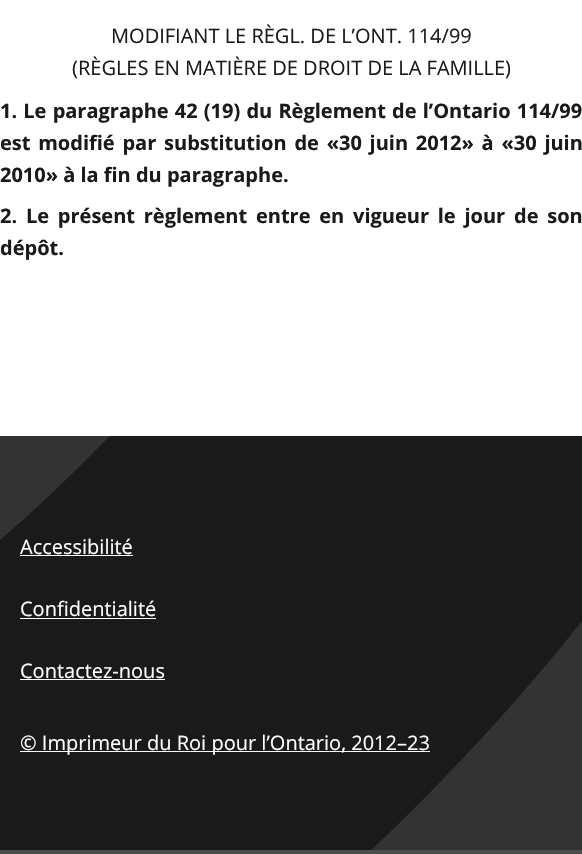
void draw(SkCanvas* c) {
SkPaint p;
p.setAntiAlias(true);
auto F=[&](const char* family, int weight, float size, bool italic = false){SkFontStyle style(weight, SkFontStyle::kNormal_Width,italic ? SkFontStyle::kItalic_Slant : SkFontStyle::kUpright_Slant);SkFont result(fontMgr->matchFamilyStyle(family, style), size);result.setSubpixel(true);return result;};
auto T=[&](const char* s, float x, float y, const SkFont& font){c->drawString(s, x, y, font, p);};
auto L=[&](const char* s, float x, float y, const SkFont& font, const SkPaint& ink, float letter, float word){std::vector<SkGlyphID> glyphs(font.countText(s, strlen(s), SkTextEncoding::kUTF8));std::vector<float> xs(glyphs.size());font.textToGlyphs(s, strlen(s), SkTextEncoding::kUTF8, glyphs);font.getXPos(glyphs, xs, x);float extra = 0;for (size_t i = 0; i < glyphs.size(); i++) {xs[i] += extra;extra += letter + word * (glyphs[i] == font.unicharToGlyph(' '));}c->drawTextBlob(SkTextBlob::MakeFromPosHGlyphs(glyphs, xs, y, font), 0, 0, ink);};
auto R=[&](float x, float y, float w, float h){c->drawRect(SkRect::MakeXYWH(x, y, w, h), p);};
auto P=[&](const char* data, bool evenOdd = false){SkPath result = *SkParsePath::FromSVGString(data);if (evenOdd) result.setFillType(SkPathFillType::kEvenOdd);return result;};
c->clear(0xffffffff);
auto f1 = F("Open Sans",400,20);
p.setColor(0xff1a1a1a);
T("MODIFIANT LE RÈGL. DE L’ONT. 114/99",111,43,f1);
T("(RÈGLES EN MATIÈRE DE DROIT DE LA FAMILLE)",72,75,f1);
auto f2 = F("Open Sans",700,20);
L("1. Le paragraphe 42 (19) du Règlement de l’Ontario 114/99",0,118,f2,p,0,1);
L("est modifié par substitution de «30 juin 2012» à «30 juin",0,150,f2,p,0,2.6);
T("2010» à la fin du paragraphe.",0,182,f2);
L("2. Le présent règlement entre en vigueur le jour de son",0,223,f2,p,0,3.6);
T("dépôt.",0,255,f2);
p.setColor(0xff4d4d4d);
R(0,850,582,4);
p.setColor(0xff333333);
R(0,436,582,414);
c->save();
c->clipRect(SkRect::MakeXYWH(0,436,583,414));
p.setColor(0xff1a1a1a);
c->drawPath(P("M94-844c-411 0-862 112-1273 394l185 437c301-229 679-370 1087-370c153 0 307 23 450 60c-117 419-383 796-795 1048l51 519c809-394 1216-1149 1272-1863c-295-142-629-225-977-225z"),p);
c->restore();
p.setColor(0xffffffff);
T("Accessibilité",20,554,f1);
R(20,555,113,1);
T("Confidentialité",20,616,f1);
R(20,618,136,1);
T("Contactez-nous",20,678,f1);
R(20,679,145,1);
R(20,751,410,1);
T("© Imprimeur du Roi pour l’Ontario, 2012–23",20,750,f1);
}
